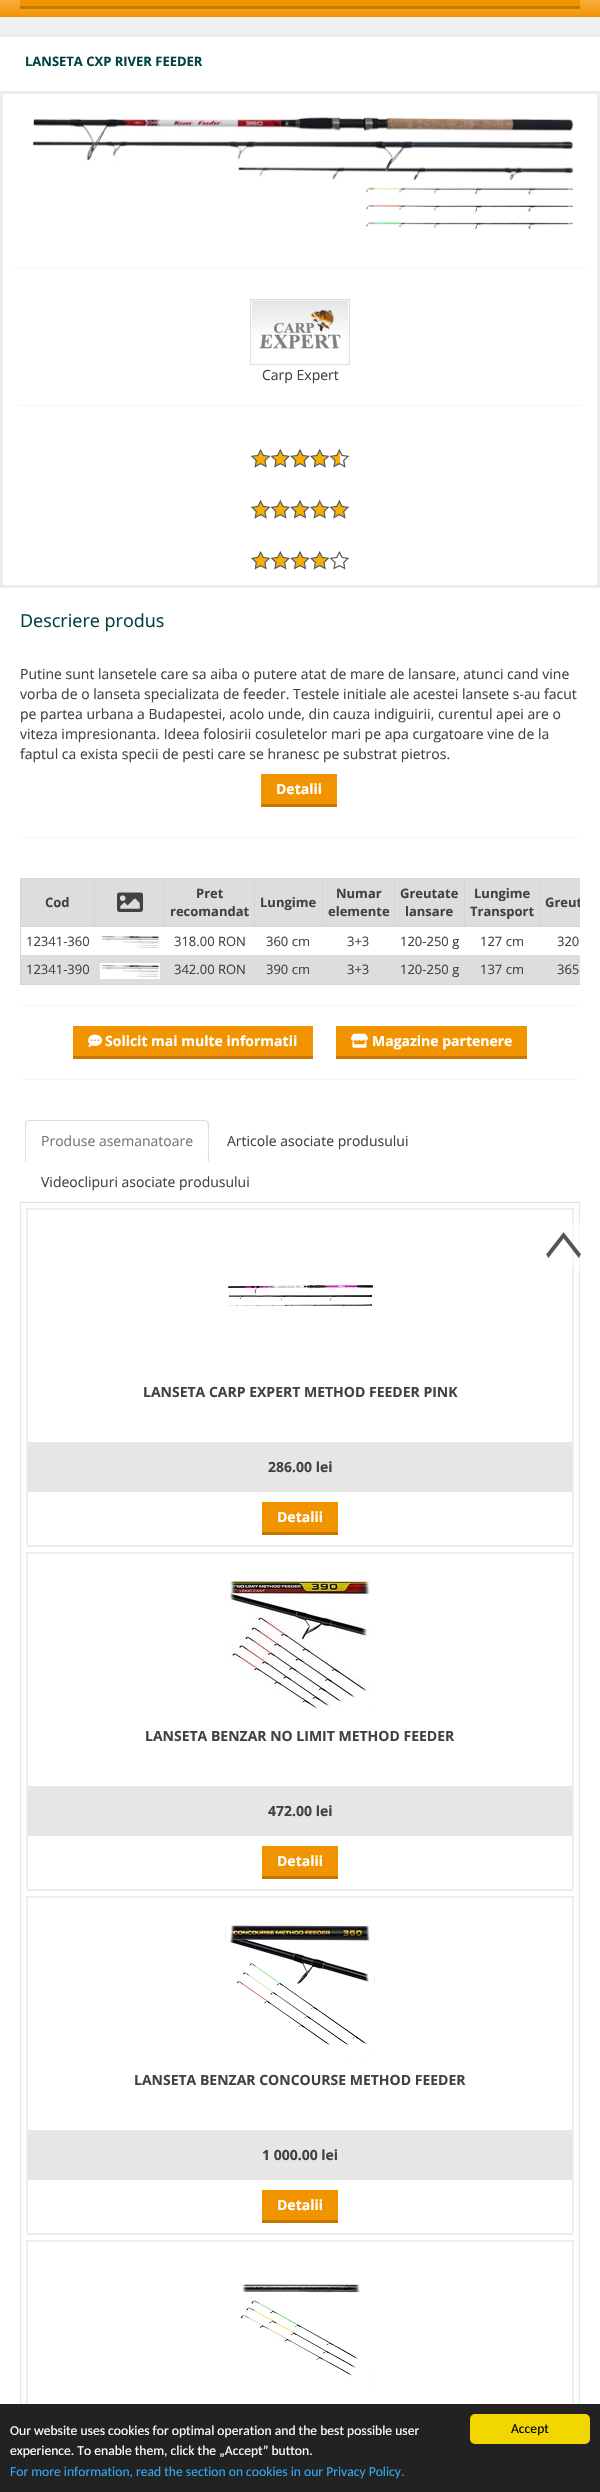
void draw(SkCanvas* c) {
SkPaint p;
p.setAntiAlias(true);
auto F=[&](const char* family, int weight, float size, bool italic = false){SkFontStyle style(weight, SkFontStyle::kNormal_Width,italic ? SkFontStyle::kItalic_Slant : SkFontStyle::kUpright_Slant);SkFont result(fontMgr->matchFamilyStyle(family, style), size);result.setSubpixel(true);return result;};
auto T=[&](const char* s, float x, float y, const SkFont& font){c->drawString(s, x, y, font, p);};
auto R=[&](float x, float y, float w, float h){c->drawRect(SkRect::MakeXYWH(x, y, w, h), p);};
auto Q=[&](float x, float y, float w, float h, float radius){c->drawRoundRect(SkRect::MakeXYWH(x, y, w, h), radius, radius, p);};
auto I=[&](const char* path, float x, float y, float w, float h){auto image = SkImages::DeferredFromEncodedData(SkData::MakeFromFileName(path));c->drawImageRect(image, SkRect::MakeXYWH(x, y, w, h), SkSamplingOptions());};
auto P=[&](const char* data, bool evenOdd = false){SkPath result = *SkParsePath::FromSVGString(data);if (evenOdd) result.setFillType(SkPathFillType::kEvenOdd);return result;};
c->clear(0xffffffff);
{
const SkColor colors[] = {0xffffffff,0xffededed};
const float stops[] = {0,1};
const SkPoint ends[] = {{300,-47}, {300,37}};
p.setShader(SkGradientShader::MakeLinear(ends, colors, stops, 2, SkTileMode::kClamp));
p.setAlpha(255);
}
R(0,17,600,20);
{
const SkColor colors[] = {0xfffff5e5,0xfff29400};
const float stops[] = {0,1};
const SkPoint ends[] = {{300,-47}, {300,17}};
p.setShader(SkGradientShader::MakeLinear(ends, colors, stops, 2, SkTileMode::kClamp));
p.setAlpha(255);
}
R(0,0,600,17);
p.setShader(nullptr);
p.setColor(0xfff29400);
R(20,0,560,6);
p.setColor(0xffc57800);
R(20,6,560,3);
auto f1 = F("Open Sans",700,13);
p.setColor(0xff004142);
T("LANSETA CXP RIVER FEEDER",25,66,f1);
p.setStroke(true);
p.setStrokeWidth(3);
p.setColor(0xffededed);
c->drawRect(SkRect::MakeXYWH(1.5,92.5,597,494),p);
I("1.png",32,117,542,113);
p.setStroke(false);
p.setColor(0xfff5f5f5);
R(13,268,574,1);
I("2.png",250,299,100,66);
auto f2 = F("Open Sans",400,14);
p.setColor(0xff414242);
T("Carp Expert",262,380,f2);
p.setColor(0xfff5f5f5);
R(18,405,564,1);
I("3.png",250,448,100,20);
I("4.png",250,499,100,20);
I("5.png",251,550,99,20);
auto f3 = F("Open Sans",400,18);
p.setColor(0xff004142);
T("Descriere produs",20,627,f3);
p.setColor(0xff414242);
T("Putine sunt lansetele care sa aiba o putere atat de mare de lansare, atunci cand vine",20,679,f2);
T("vorba de o lanseta specializata de feeder. Testele initiale ale acestei lansete s-au facut",20,699,f2);
T("pe partea urbana a Budapestei, acolo unde, din cauza indiguirii, curentul apei are o",20,719,f2);
T("viteza impresionanta. Ideea folosirii cosuletelor mari pe apa curgatoare vine de la",20,739,f2);
T("faptul ca exista specii de pesti care se hranesc pe substrat pietros.",20,759,f2);
p.setColor(0xfff29400);
R(261,774,76,30);
p.setColor(0xffc57800);
R(261,804,76,3);
auto f4 = F("Open Sans",700,14);
p.setColor(0xffffffff);
T("Detalii",276,794,f4);
p.setColor(0xfff5f5f5);
R(20,837,560,1);
p.setColor(0xffd6d6d6);
R(20,878,560,1);
R(20,984,560,1);
R(20,878,1,107);
p.setColor(0xffdddddd);
R(21,879,73,47);
p.setColor(0xffd5d5d5);
R(539,926,41,1);
R(539,878,1,49);
R(464,926,76,1);
R(464,878,1,49);
R(394,926,71,1);
R(394,878,1,49);
R(322,926,73,1);
R(322,878,1,49);
R(254,926,69,1);
R(254,878,1,49);
R(164,926,91,1);
R(164,878,1,49);
R(94,926,71,1);
R(94,878,1,49);
R(20,926,75,1);
p.setColor(0xff414242);
T("Cod",45,907,f1);
p.setColor(0xffdddddd);
R(95,879,69,47);
I("6.png",117,892,26,20);
R(165,879,89,47);
p.setColor(0xff414242);
T("Pret",196,898,f1);
T("recomandat",170,916,f1);
p.setColor(0xffdddddd);
R(255,879,67,47);
p.setColor(0xff414242);
T("Lungime",260,907,f1);
p.setColor(0xffdddddd);
R(323,879,71,47);
p.setColor(0xff414242);
T("Numar",336,898,f1);
T("elemente",328,916,f1);
p.setColor(0xffdddddd);
R(395,879,69,47);
p.setColor(0xff414242);
T("Greutate",400,898,f1);
T("lansare",405,916,f1);
p.setColor(0xffdddddd);
R(465,879,74,47);
p.setColor(0xff414242);
T("Lungime",474,898,f1);
T("Transport",470,916,f1);
p.setColor(0xffdddddd);
R(540,879,40,47);
c->save();
c->clipRect(SkRect::MakeXYWH(20,878,560,107));
p.setColor(0xff414242);
T("Greut",545,907,f1);
c->restore();
auto f5 = F("Open Sans",400,13);
T("12341-360",26,946,f5);
I("7.png",101,936,58,13);
T("318.00 RON",174,946,f5);
T("360 cm",266,946,f5);
T("3+3",347,946,f5);
T("120-250 g",400,946,f5);
T("127 cm",480,946,f5);
T("320",557,946,f5);
p.setColor(0xffdddddd);
R(21,955,559,29);
p.setColor(0xff414242);
T("12341-390",26,974,f5);
I("8.png",100,963,60,16);
T("342.00 RON",174,974,f5);
T("390 cm",266,974,f5);
T("3+3",347,974,f5);
T("120-250 g",400,974,f5);
T("137 cm",480,974,f5);
T("365",557,974,f5);
p.setColor(0xfff5f5f5);
R(20,1005,560,1);
p.setColor(0xfff29400);
R(73,1026,240,30);
p.setColor(0xffc57800);
R(73,1056,240,3);
I("9.png",88,1034,14,13);
p.setColor(0xffffffff);
T("Solicit mai multe informatii",105,1046,f4);
p.setColor(0xfff29400);
R(336,1026,191,30);
p.setColor(0xffc57800);
R(336,1056,191,3);
I("10.png",351,1033,17,15);
p.setColor(0xffffffff);
T("Magazine partenere",372,1046,f4);
p.setColor(0xfff5f5f5);
R(20,1079,560,1);
p.setColor(0xffdddddd);
R(20,1202,560,1);
c->drawPath(P("M29 1120l-3 1l1 1l2-1h176l2 1l1-1l-3-1z"),p);
c->drawPath(P("M209 1162v-38c0-1-1-2-1-3l-1 1c2 2 1 34 1 39z"),p);
c->drawPath(P("M25 1162l1-1c0-5-1-37 1-39l-1-1l-1 3z"),p);
p.setColor(0xff777777);
T("Produse asemanatoare",41,1146,f2);
p.setColor(0xff414242);
T("Articole asociate produsului",227,1146,f2);
T("Videoclipuri asociate produsului",41,1187,f2);
p.setColor(0xffe6e6e6);
R(579,1203,1,1201);
R(20,1203,1,1201);
p.setStroke(true);
p.setStrokeWidth(2);
p.setColor(0xffededed);
c->drawRect(SkRect::MakeXYWH(27,1209,546,337),p);
I("11.png",228,1285,146,23);
p.setStroke(false);
p.setColor(0xff414242);
T("LANSETA CARP EXPERT METHOD FEEDER PINK",143,1397,f4);
p.setColor(0xffe6e6e6);
R(28,1442,544,50);
p.setColor(0xff414242);
T("286.00 lei",268,1472,f4);
p.setColor(0xfff29400);
R(262,1502,76,30);
p.setColor(0xffc57800);
R(262,1532,76,3);
p.setColor(0xffffffff);
T("Detalii",277,1522,f4);
p.setStroke(true);
p.setColor(0xffededed);
c->drawRect(SkRect::MakeXYWH(27,1553,546,337),p);
I("12.png",225,1579,150,133);
p.setStroke(false);
p.setColor(0xff414242);
T("LANSETA BENZAR NO LIMIT METHOD FEEDER",145,1741,f4);
p.setColor(0xffe6e6e6);
R(28,1786,544,50);
p.setColor(0xff414242);
T("472.00 lei",268,1816,f4);
p.setColor(0xfff29400);
R(262,1846,76,30);
p.setColor(0xffc57800);
R(262,1876,76,3);
p.setColor(0xffffffff);
T("Detalii",277,1866,f4);
p.setStroke(true);
p.setColor(0xffededed);
c->drawRect(SkRect::MakeXYWH(27,1897,546,337),p);
I("13.png",225,1925,150,133);
p.setStroke(false);
p.setColor(0xff414242);
T("LANSETA BENZAR CONCOURSE METHOD FEEDER",134,2085,f4);
p.setColor(0xffe6e6e6);
R(28,2130,544,50);
p.setColor(0xff414242);
T("1 000.00 lei",262,2160,f4);
p.setColor(0xfff29400);
R(262,2190,76,30);
p.setColor(0xffc57800);
R(262,2220,76,3);
p.setColor(0xffffffff);
T("Detalii",277,2210,f4);
p.setStroke(true);
p.setColor(0xffededed);
c->drawRect(SkRect::MakeXYWH(27,2241,546,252),p);
I("14.png",240,2284,135,105);
p.setStroke(false);
p.setColor(0x80ffffff);
R(572,1222,8,46);
I("15.png",546,1232,35,26);
p.setColor(0xff222222);
R(0,2404,600,88);
auto f6 = F("Carlito",400,13.6);
p.setColor(0xffffffff);
T("Our website uses cookies for optimal operation and the best possible user",10,2435,f6);
T("experience. To enable them, click the „Accept” button.",10,2455,f6);
p.setColor(0xff31a8f0);
T("For more information, read the section on cookies in our Privacy Policy.",10,2476,f6);
p.setColor(0xfff1d600);
Q(470,2414,120,30,5);
p.setColor(0xff000000);
T("Accept",511,2433,f6);
}
